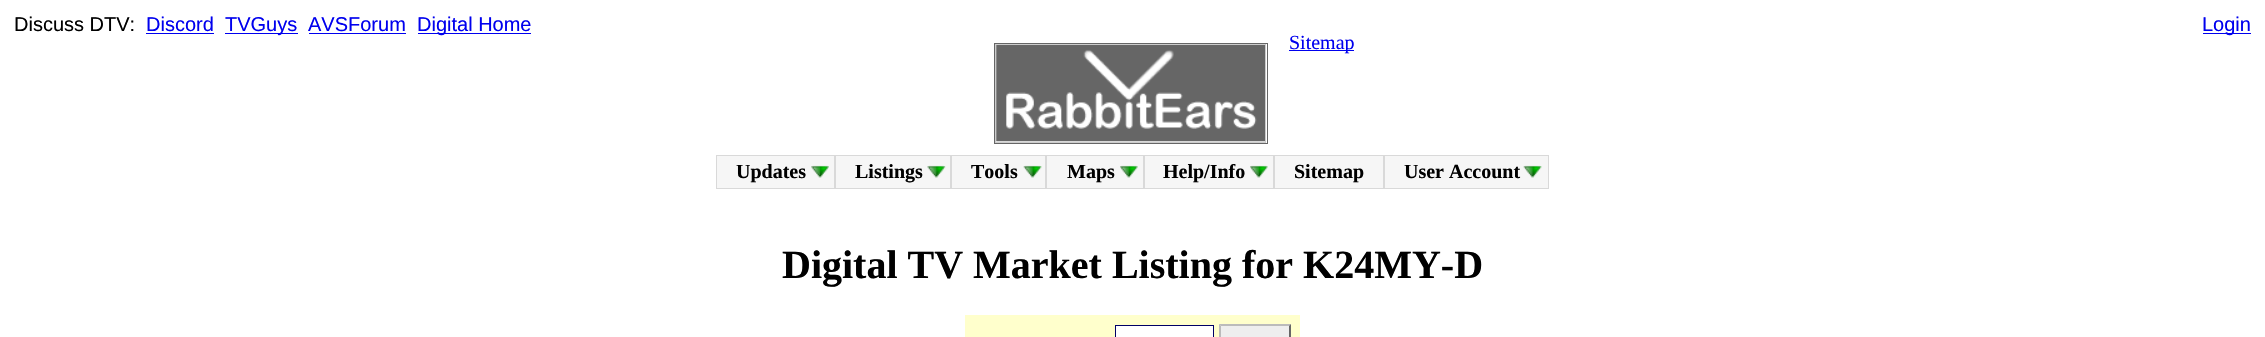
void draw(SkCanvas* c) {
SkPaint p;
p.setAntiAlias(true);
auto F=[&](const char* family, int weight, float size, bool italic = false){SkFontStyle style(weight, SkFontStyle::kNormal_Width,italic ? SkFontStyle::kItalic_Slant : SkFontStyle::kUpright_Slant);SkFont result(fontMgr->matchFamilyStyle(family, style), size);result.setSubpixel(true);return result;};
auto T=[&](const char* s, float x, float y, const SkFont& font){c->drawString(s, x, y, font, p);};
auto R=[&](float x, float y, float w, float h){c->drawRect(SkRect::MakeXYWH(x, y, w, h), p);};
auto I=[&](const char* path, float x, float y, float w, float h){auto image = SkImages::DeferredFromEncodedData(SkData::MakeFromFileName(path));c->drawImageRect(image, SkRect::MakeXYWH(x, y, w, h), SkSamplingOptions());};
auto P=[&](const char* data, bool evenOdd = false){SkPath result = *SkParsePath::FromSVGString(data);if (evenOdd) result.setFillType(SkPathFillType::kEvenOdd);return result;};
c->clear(0xffffffff);
auto f1 = F("Liberation Sans",400,20);
p.setColor(0xff000000);
T("Discuss DTV:",14,31,f1);
p.setColor(0xff0000ee);
T("Discord",146,31,f1);
R(146,33,68,1);
R(225,33,73,1);
T("TVGuys",225,31,f1);
T("AVSForum",308,31,f1);
R(309,33,97,1);
R(418,33,113,1);
T("Digital Home",417,31,f1);
R(2203,33,48,1);
T("Login",2202,31,f1);
p.setStroke(true);
p.setStrokeWidth(1);
p.setColor(0xffcccccc);
c->drawRect(SkRect::MakeXYWH(995.5,44.5,270,98),p);
I("1.png",996,45,269,97);
p.setColor(0xff666666);
c->drawRect(SkRect::MakeXYWH(994.5,43.5,273,100),p);
p.setStroke(false);
p.setColor(0xff0000ee);
R(1289,50,65,1);
auto f2 = F("Liberation Serif",400,20);
T("Sitemap",1289,49,f2);
p.setColor(0xfff6f6f6);
R(717,156,117,32);
I("2.png",811,165,18,13);
p.setStroke(true);
p.setColor(0xffd9d9d9);
c->drawRect(SkRect::MakeXYWH(716.5,155.5,118,33),p);
auto f3 = F("Liberation Serif",700,20);
p.setStroke(false);
p.setColor(0xff000000);
T("Updates",736,178,f3);
p.setColor(0xfff6f6f6);
R(836,156,114,32);
I("3.png",927,165,19,13);
p.setStroke(true);
p.setColor(0xffd9d9d9);
c->drawRect(SkRect::MakeXYWH(835.5,155.5,115,33),p);
p.setStroke(false);
p.setColor(0xff000000);
T("Listings",855,178,f3);
p.setColor(0xfff6f6f6);
R(952,156,93,32);
I("4.png",1023,165,19,13);
p.setStroke(true);
p.setColor(0xffd9d9d9);
c->drawRect(SkRect::MakeXYWH(951.5,155.5,94,33),p);
p.setStroke(false);
p.setColor(0xff000000);
T("Tools",971,178,f3);
p.setColor(0xfff6f6f6);
R(1047,156,96,32);
I("5.png",1120,165,18,13);
p.setStroke(true);
p.setColor(0xffd9d9d9);
c->drawRect(SkRect::MakeXYWH(1046.5,155.5,97,33),p);
p.setStroke(false);
p.setColor(0xff000000);
T("Maps",1067,178,f3);
p.setColor(0xfff6f6f6);
R(1145,156,128,32);
I("6.png",1250,165,18,13);
p.setStroke(true);
p.setColor(0xffd9d9d9);
c->drawRect(SkRect::MakeXYWH(1144.5,155.5,129,33),p);
p.setStroke(false);
p.setColor(0xff000000);
T("Help/Info",1163,178,f3);
p.setColor(0xfff6f6f6);
c->drawRect(SkRect::MakeXYWH(1274.5,155.5,109,33),p);
p.setStroke(true);
p.setColor(0xffd9d9d9);
c->drawRect(SkRect::MakeXYWH(1274.5,155.5,109,33),p);
p.setStroke(false);
p.setColor(0xff000000);
T("Sitemap",1294,178,f3);
p.setColor(0xfff6f6f6);
R(1385,156,163,32);
I("7.png",1523,165,19,13);
p.setStroke(true);
p.setColor(0xffd9d9d9);
c->drawRect(SkRect::MakeXYWH(1384.5,155.5,164,33),p);
p.setStroke(false);
p.setColor(0xff000000);
T("User Account",1404,178,f3);
auto f4 = F("Liberation Serif",700,40);
T("Digital TV Market Listing for K24MY-D",782,278,f4);
p.setColor(0xffffffcc);
R(965,315,335,22);
p.setColor(0xffffffff);
c->drawRect(SkRect::MakeXYWH(1115.5,325.5,98,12),p);
p.setStroke(true);
p.setColor(0xff000066);
c->drawRect(SkRect::MakeXYWH(1115.5,325.5,98,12),p);
p.setStroke(false);
p.setColor(0xffeeeeee);
R(1219,324,72,13);
p.setColor(0xffbbbbbb);
c->drawPath(P("M1219 324h72l-2 2h-68z"),p);
p.setColor(0xff666666);
c->drawPath(P("M1291 324v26l-2-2.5v-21.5z"),p);
p.setColor(0xffbbbbbb);
c->drawPath(P("M1219 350v-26l2 2v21.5z"),p);
}
